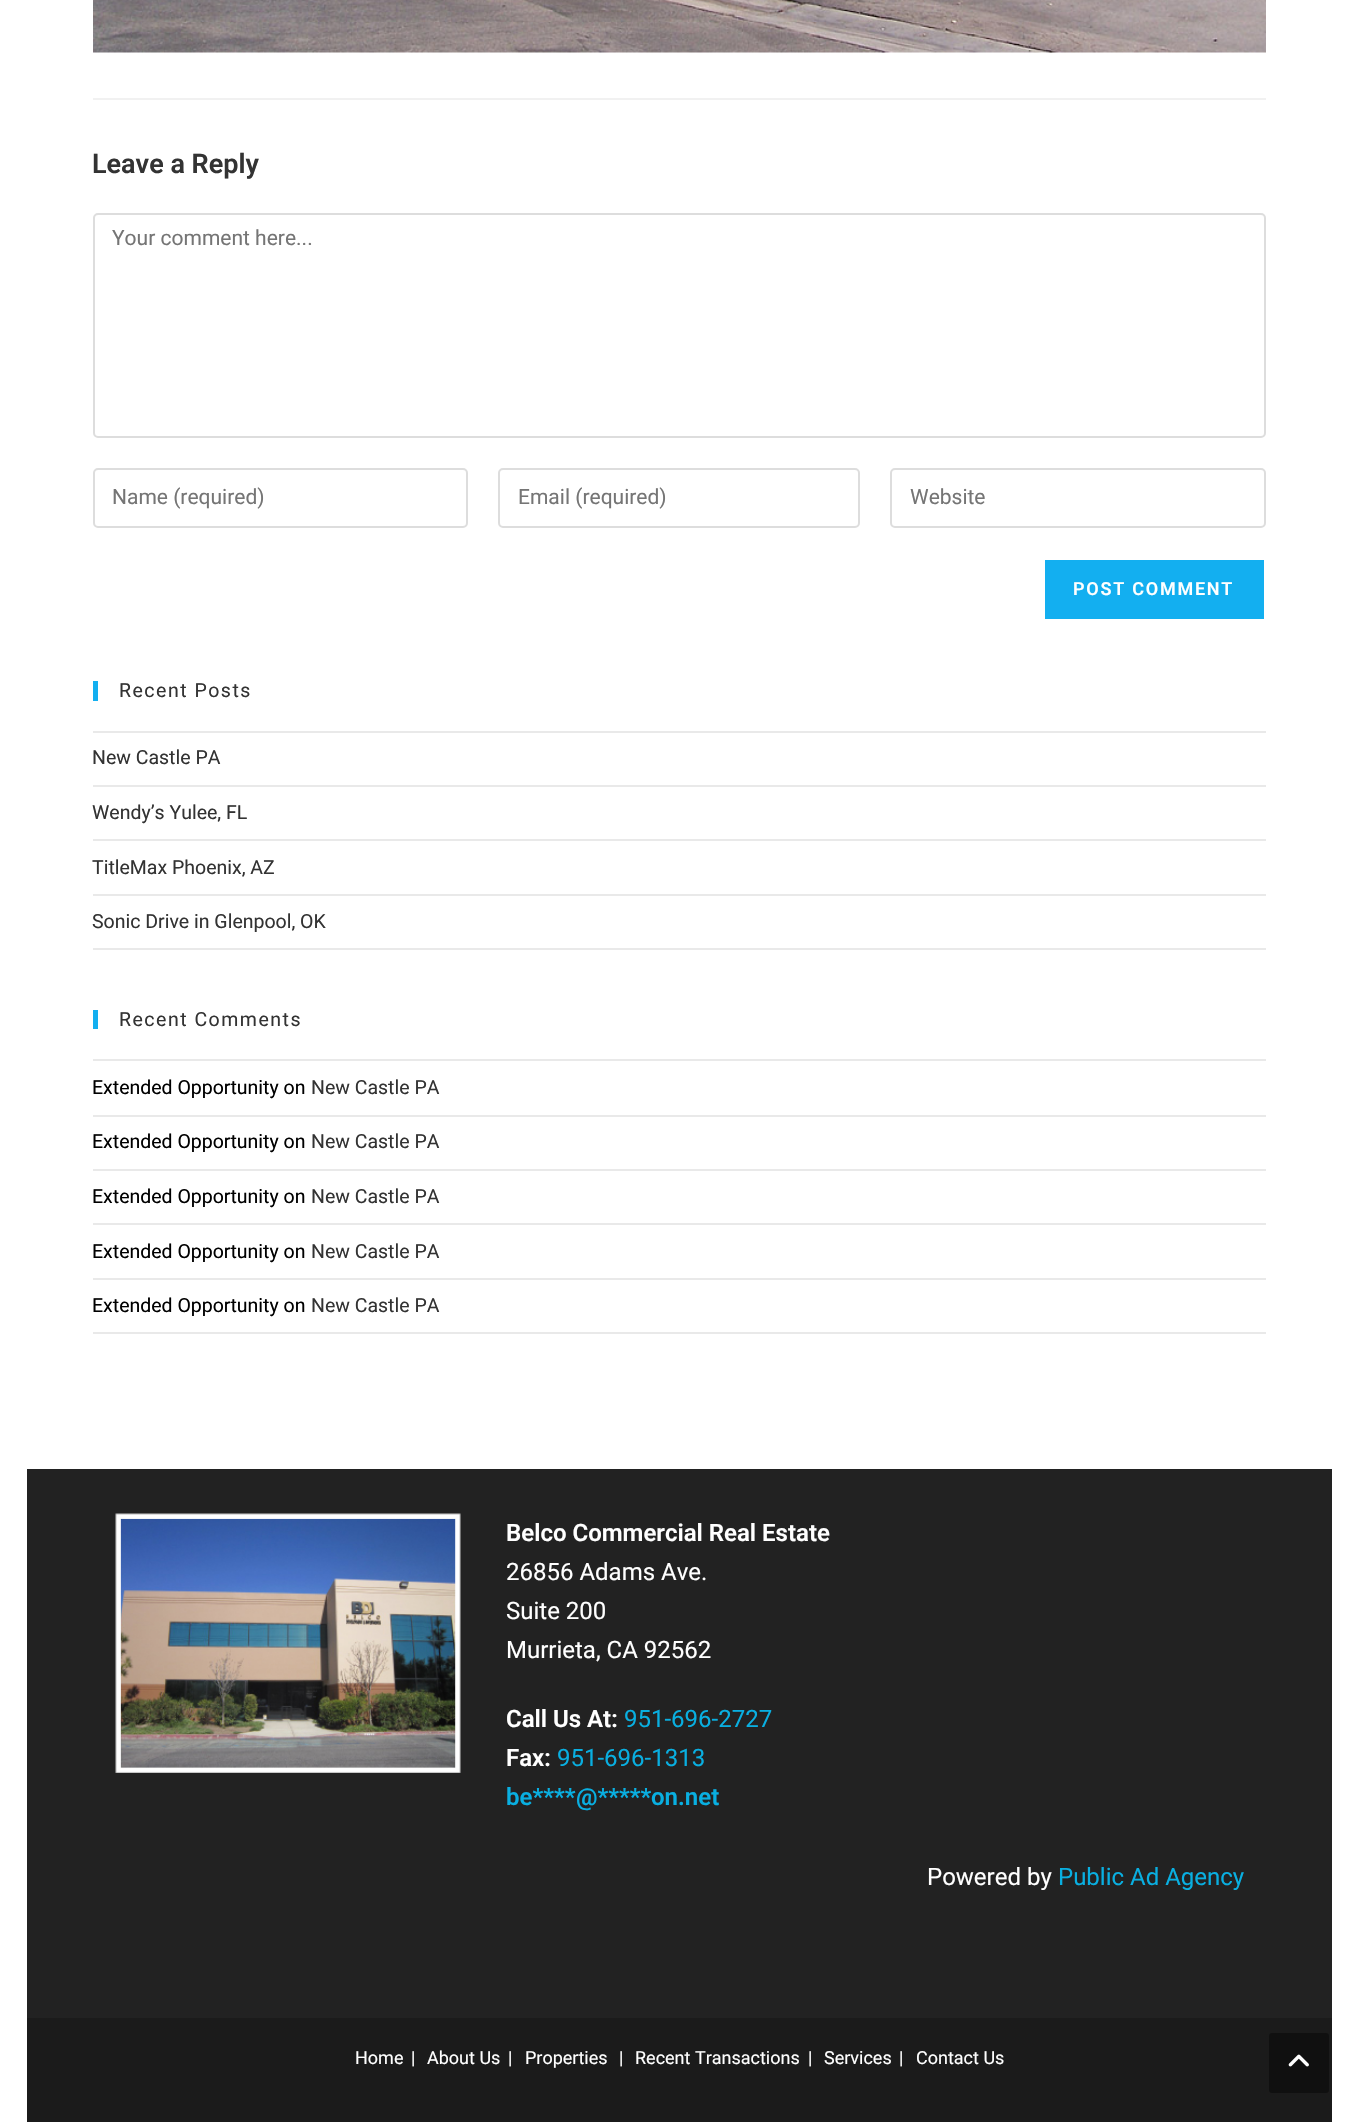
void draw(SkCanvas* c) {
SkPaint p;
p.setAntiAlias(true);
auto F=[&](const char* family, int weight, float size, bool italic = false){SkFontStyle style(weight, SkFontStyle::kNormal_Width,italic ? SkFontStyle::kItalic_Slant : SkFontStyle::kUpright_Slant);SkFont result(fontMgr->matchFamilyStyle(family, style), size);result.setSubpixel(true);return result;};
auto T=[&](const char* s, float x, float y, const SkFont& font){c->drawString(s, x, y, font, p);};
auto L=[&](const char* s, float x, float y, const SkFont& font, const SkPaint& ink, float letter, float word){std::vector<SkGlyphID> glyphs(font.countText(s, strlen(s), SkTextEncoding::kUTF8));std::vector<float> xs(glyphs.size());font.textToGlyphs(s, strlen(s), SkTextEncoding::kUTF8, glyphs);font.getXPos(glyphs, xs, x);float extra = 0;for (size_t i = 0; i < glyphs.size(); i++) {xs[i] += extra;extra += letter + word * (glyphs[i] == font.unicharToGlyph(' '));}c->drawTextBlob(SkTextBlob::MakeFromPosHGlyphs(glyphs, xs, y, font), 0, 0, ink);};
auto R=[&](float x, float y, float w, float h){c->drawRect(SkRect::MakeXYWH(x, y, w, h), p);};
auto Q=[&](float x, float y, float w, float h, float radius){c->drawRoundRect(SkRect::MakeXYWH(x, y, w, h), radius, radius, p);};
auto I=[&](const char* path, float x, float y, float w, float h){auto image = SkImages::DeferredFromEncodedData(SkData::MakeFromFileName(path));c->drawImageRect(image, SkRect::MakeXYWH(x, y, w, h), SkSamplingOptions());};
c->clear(0xffffffff);
I("1.png",93,0,1173,53);
p.setColor(0xfff1f1f1);
R(93,98,1173,2);
auto f1 = F("Roboto",600,27);
p.setColor(0xff333333);
T("Leave a Reply",92,173,f1);
p.setStroke(true);
p.setStrokeWidth(2);
p.setColor(0xffdddddd);
c->drawRoundRect(SkRect::MakeXYWH(94,214,1171,223),4,4,p);
auto f2 = F("Roboto",400,21);
p.setStroke(false);
p.setColor(0xff757575);
T("Your comment here...",112,245,f2);
p.setStroke(true);
p.setColor(0xffdddddd);
c->drawRoundRect(SkRect::MakeXYWH(94,469,373,58),4,4,p);
p.setStroke(false);
p.setColor(0xff757575);
T("Name (required)",112,504,f2);
p.setStroke(true);
p.setColor(0xffdddddd);
c->drawRoundRect(SkRect::MakeXYWH(499,469,360,58),4,4,p);
p.setStroke(false);
p.setColor(0xff757575);
T("Email (required)",518,504,f2);
p.setStroke(true);
p.setColor(0xffdddddd);
c->drawRoundRect(SkRect::MakeXYWH(891,469,374,58),4,4,p);
p.setStroke(false);
p.setColor(0xff757575);
T("Website",910,504,f2);
p.setColor(0xff13aff0);
R(1045,560,219,59);
auto f3 = F("Roboto",600,18);
p.setColor(0xffffffff);
L("POST COMMENT",1073,595,f3,p,1.75,0);
p.setColor(0xff13aff0);
R(93,681,5,20);
auto f4 = F("Roboto",400,19.5);
p.setColor(0xff333333);
L("Recent Posts",119,697,f4,p,1.5,0);
p.setColor(0xffe9e9e9);
R(93,731,1173,2);
R(93,785,1173,2);
p.setColor(0xff333333);
T("New Castle PA",92,764,f4);
p.setColor(0xffe9e9e9);
R(93,839,1173,2);
p.setColor(0xff333333);
T("Wendy’s Yulee, FL",92,819,f4);
p.setColor(0xffe9e9e9);
R(93,894,1173,2);
p.setColor(0xff333333);
T("TitleMax Phoenix, AZ",92,874,f4);
p.setColor(0xffe9e9e9);
R(93,948,1173,2);
p.setColor(0xff333333);
T("Sonic Drive in Glenpool, OK",92,928,f4);
p.setColor(0xff13aff0);
R(93,1010,5,19);
p.setColor(0xff333333);
L("Recent Comments",119,1026,f4,p,1.5,0);
p.setColor(0xffe9e9e9);
R(93,1059,1173,2);
R(93,1115,1173,2);
p.setColor(0xff000000);
T("Extended Opportunity on",92,1094,f4);
p.setColor(0xff333333);
T("New Castle PA",311,1094,f4);
p.setColor(0xffe9e9e9);
R(93,1169,1173,2);
p.setColor(0xff000000);
T("Extended Opportunity on",92,1148,f4);
p.setColor(0xff333333);
T("New Castle PA",311,1148,f4);
p.setColor(0xffe9e9e9);
R(93,1223,1173,2);
p.setColor(0xff000000);
T("Extended Opportunity on",92,1203,f4);
p.setColor(0xff333333);
T("New Castle PA",311,1203,f4);
p.setColor(0xffe9e9e9);
R(93,1278,1173,2);
p.setColor(0xff000000);
T("Extended Opportunity on",92,1258,f4);
p.setColor(0xff333333);
T("New Castle PA",311,1258,f4);
p.setColor(0xffe9e9e9);
R(93,1332,1173,2);
p.setColor(0xff000000);
T("Extended Opportunity on",92,1312,f4);
p.setColor(0xff333333);
T("New Castle PA",311,1312,f4);
p.setColor(0xff222222);
R(27,1469,1305,549);
I("2.png",115,1513,346,260);
auto f5 = F("Roboto",600,24);
p.setColor(0xffffffff);
T("Belco Commercial Real Estate",506,1541,f5);
auto f6 = F("Roboto",400,24);
T("26856 Adams Ave.",506,1580,f6);
T("Suite 200",506,1619,f6);
T("Murrieta, CA 92562",506,1658,f6);
T("Call Us At:",506,1727,f5);
p.setColor(0xff09afe1);
T("951-696-2727",624,1727,f6);
p.setColor(0xffffffff);
T("Fax:",506,1766,f5);
p.setColor(0xff09afe1);
T("951-696-1313",557,1766,f6);
T("be****",506,1805,f5);
T("@*****",576,1805,f5);
T("on.net",651,1805,f5);
p.setColor(0xffffffff);
T("Powered by",927,1885,f6);
p.setColor(0xff09afe1);
T("Public Ad Agency",1058,1885,f6);
p.setColor(0xff1b1b1b);
R(27,2018,1305,104);
auto f7 = F("Roboto",400,18);
p.setColor(0xffffffff);
T("Home",355,2064,f7);
T("|",411,2064,f7);
T("About Us",427,2064,f7);
T("|",508,2064,f7);
T("Properties",525,2064,f7);
T("|",619,2064,f7);
T("Recent Transactions",635,2064,f7);
T("|",808,2064,f7);
T("Services",824,2064,f7);
T("|",899,2064,f7);
T("Contact Us",916,2064,f7);
p.setColor(0xff101010);
Q(1269,2033,60,60,3);
I("3.png",1288,2054,21,13);
}
